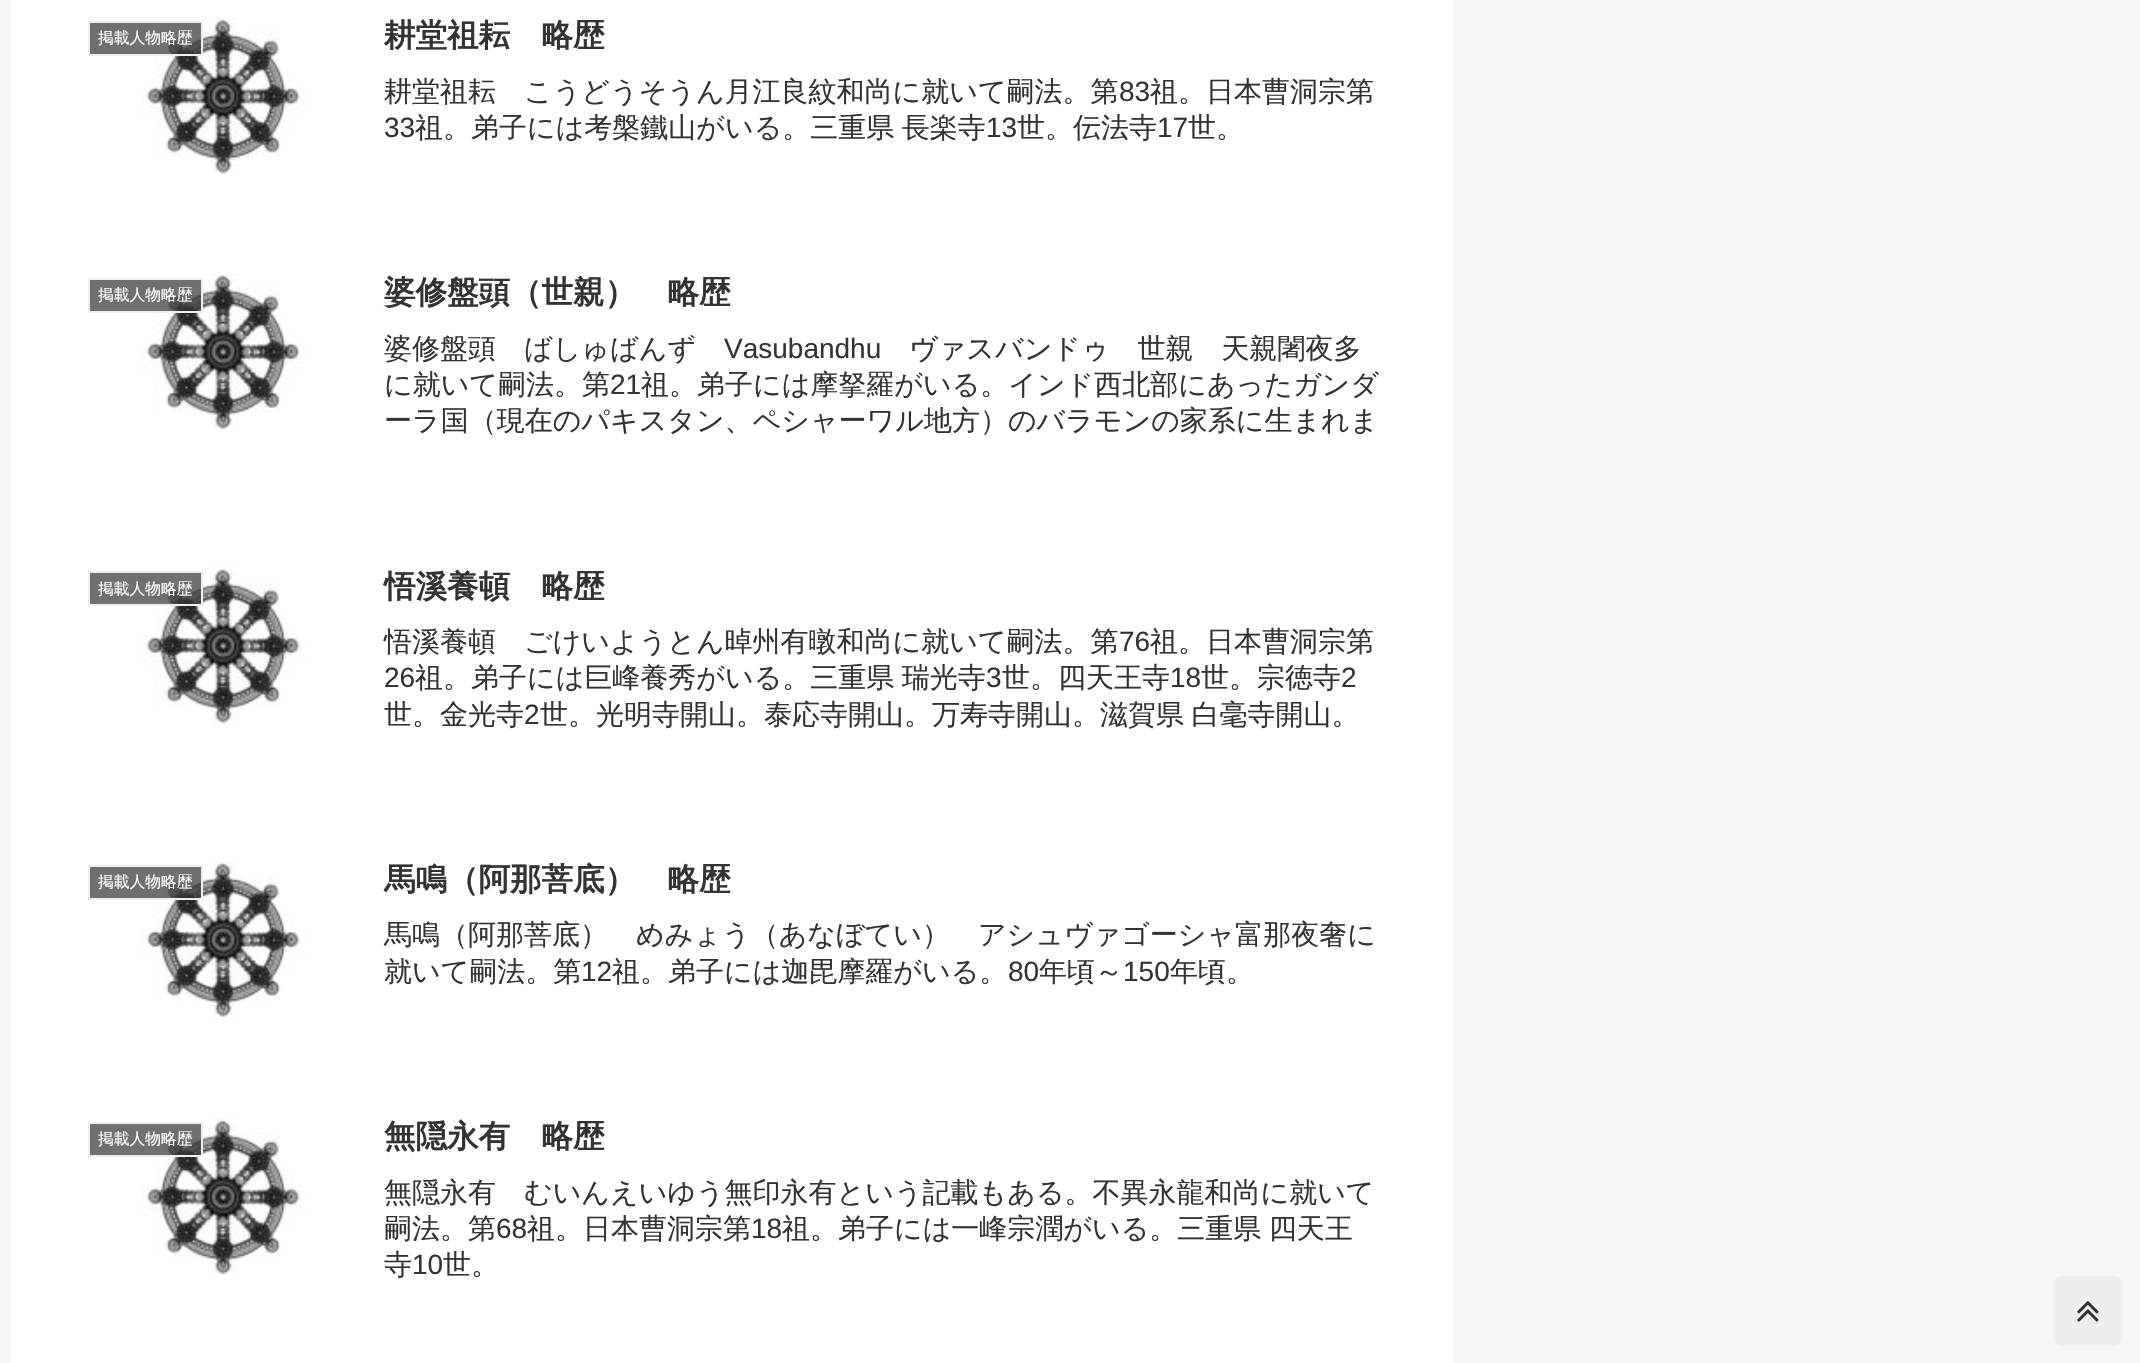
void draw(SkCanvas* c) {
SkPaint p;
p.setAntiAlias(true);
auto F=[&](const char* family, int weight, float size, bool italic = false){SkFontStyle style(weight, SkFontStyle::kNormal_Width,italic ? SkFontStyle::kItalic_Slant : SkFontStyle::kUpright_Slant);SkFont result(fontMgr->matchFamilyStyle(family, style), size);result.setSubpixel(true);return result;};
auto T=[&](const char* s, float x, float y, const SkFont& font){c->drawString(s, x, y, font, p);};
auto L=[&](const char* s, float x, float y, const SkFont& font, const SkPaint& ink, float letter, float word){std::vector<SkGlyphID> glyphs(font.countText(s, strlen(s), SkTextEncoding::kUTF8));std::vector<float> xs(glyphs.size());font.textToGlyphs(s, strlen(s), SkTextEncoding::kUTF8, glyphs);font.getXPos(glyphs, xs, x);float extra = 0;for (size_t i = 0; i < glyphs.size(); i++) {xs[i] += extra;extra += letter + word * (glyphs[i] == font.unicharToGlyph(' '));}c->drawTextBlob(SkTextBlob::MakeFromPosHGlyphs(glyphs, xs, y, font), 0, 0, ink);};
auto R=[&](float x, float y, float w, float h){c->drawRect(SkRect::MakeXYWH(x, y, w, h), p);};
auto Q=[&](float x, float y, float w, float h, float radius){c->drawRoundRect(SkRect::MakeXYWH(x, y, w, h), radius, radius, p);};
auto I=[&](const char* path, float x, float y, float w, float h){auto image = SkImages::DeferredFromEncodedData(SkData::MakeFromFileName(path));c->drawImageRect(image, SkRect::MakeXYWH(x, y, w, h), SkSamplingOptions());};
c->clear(0xfff4f5f7);
p.setColor(0xffffffff);
R(11,0,1442,1363);
I("1.png",140,17,166,158);
p.setColor(0xb3333333);
c->drawRect(SkRect::MakeXYWH(89,22,113,33),p);
p.setStroke(true);
p.setStrokeWidth(2);
p.setColor(0xffeeeeee);
c->drawRect(SkRect::MakeXYWH(89,22,113,33),p);
auto f1 = F("WenQuanYi Zen Hei",500,15.75);
p.setStroke(false);
p.setColor(0xffffffff);
T("掲載人物略歴",98,43,f1);
auto f2 = F("WenQuanYi Zen Hei",700,31.5);
p.setColor(0xff333333);
T("耕堂祖耘　略歴",384,46,f2);
auto f3 = F("WenQuanYi Zen Hei",500,28);
T("耕堂祖耘　こうどうそうん月江良紋和尚に就いて嗣法。第",384,101,f3);
auto f4 = F("Liberation Sans",400,28);
T("83",1119,101,f4);
T("祖。日本曹洞宗第",1150,101,f3);
T("33",384,137,f4);
L("祖。弟子には考槃鐵山がいる。三重県 長楽寺",415,137,f3,p,0,-1);
T("13",986,137,f4);
T("世。伝法寺",1017,137,f3);
T("17",1157,137,f4);
T("世。",1188,137,f3);
I("2.png",140,273,166,157);
p.setColor(0xb3333333);
c->drawRect(SkRect::MakeXYWH(89,279,113,33),p);
p.setStroke(true);
p.setColor(0xffeeeeee);
c->drawRect(SkRect::MakeXYWH(89,279,113,33),p);
p.setStroke(false);
p.setColor(0xffffffff);
T("掲載人物略歴",98,300,f1);
p.setColor(0xff333333);
T("婆修盤頭（世親）　略歴",384,303,f2);
T("婆修盤頭　ばしゅばんず",384,358,f3);
T("Vasubandhu",724,358,f4);
T("ヴァスバンドゥ　世親　天親闍夜多",909,358,f3);
T("に就いて嗣法。第",384,394,f3);
T("21",610,394,f4);
T("祖。弟子には摩拏羅がいる。インド西北部にあったガンダ",641,394,f3);
T("ーラ国（現在のパキスタン、ペシャーワル地方）のバラモンの家系に生まれま",384,430,f3);
I("3.png",140,567,166,157);
p.setColor(0xb3333333);
c->drawRect(SkRect::MakeXYWH(89,572,113,33),p);
p.setStroke(true);
p.setColor(0xffeeeeee);
c->drawRect(SkRect::MakeXYWH(89,572,113,33),p);
p.setStroke(false);
p.setColor(0xffffffff);
T("掲載人物略歴",98,594,f1);
p.setColor(0xff333333);
T("悟溪養頓　略歴",384,597,f2);
T("悟溪養頓　ごけいようとん晫州有暾和尚に就いて嗣法。第",384,651,f3);
T("76",1119,651,f4);
T("祖。日本曹洞宗第",1150,651,f3);
T("26",384,687,f4);
L("祖。弟子には巨峰養秀がいる。三重県 瑞光寺",415,687,f3,p,0,-1);
T("3",986,687,f4);
T("世。四天王寺",1002,687,f3);
T("18",1170,687,f4);
T("世。宗徳寺",1201,687,f3);
T("2",1341,687,f4);
T("世。金光寺",384,724,f3);
T("2",524,724,f4);
L("世。光明寺開山。泰応寺開山。万寿寺開山。滋賀県 白毫寺開山。",540,724,f3,p,0,-1);
I("3.png",140,861,166,157);
p.setColor(0xb3333333);
c->drawRect(SkRect::MakeXYWH(89,866,113,33),p);
p.setStroke(true);
p.setColor(0xffeeeeee);
c->drawRect(SkRect::MakeXYWH(89,866,113,33),p);
p.setStroke(false);
p.setColor(0xffffffff);
T("掲載人物略歴",98,887,f1);
p.setColor(0xff333333);
T("馬鳴（阿那菩底）　略歴",384,890,f2);
T("馬鳴（阿那菩底）　めみょう（あなぼてい）　アシュヴァゴーシャ富那夜奢に",384,944,f3);
T("就いて嗣法。第",384,981,f3);
T("12",581,981,f4);
T("祖。弟子には迦毘摩羅がいる。",612,981,f3);
T("80",1008,981,f4);
T("年頃～",1039,981,f3);
T("150",1123,981,f4);
T("年頃。",1170,981,f3);
I("4.png",140,1118,166,158);
p.setColor(0xb3333333);
c->drawRect(SkRect::MakeXYWH(89,1123,113,33),p);
p.setStroke(true);
p.setColor(0xffeeeeee);
c->drawRect(SkRect::MakeXYWH(89,1123,113,33),p);
p.setStroke(false);
p.setColor(0xffffffff);
T("掲載人物略歴",98,1144,f1);
p.setColor(0xff333333);
T("無隠永有　略歴",384,1147,f2);
T("無隠永有　むいんえいゆう無印永有という記載もある。不異永龍和尚に就いて",384,1202,f3);
T("嗣法。第",384,1238,f3);
T("68",496,1238,f4);
T("祖。日本曹洞宗第",527,1238,f3);
T("18",751,1238,f4);
L("祖。弟子には一峰宗潤がいる。三重県 四天王",782,1238,f3,p,0,-1);
T("寺",384,1274,f3);
T("10",412,1274,f4);
T("世。",443,1274,f3);
p.setColor(0xffeeeeee);
Q(2053,1276,70,70,9);
I("5.png",2077,1301,22,21);
}
